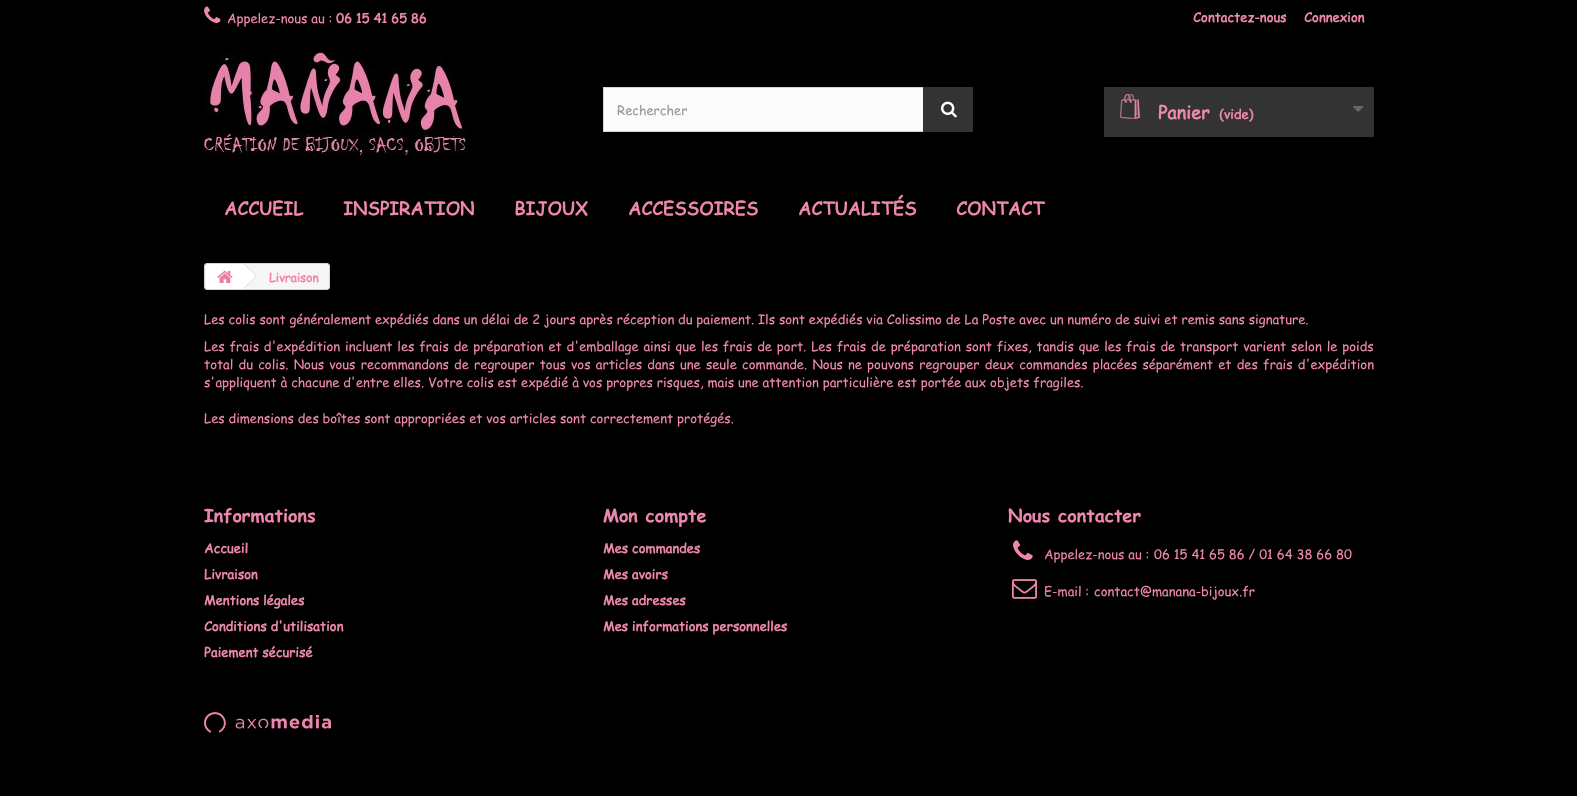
void draw(SkCanvas* c) {
SkPaint p;
p.setAntiAlias(true);
auto F=[&](const char* family, int weight, float size, bool italic = false){SkFontStyle style(weight, SkFontStyle::kNormal_Width,italic ? SkFontStyle::kItalic_Slant : SkFontStyle::kUpright_Slant);SkFont result(fontMgr->matchFamilyStyle(family, style), size);result.setSubpixel(true);return result;};
auto T=[&](const char* s, float x, float y, const SkFont& font){c->drawString(s, x, y, font, p);};
auto L=[&](const char* s, float x, float y, const SkFont& font, const SkPaint& ink, float letter, float word){std::vector<SkGlyphID> glyphs(font.countText(s, strlen(s), SkTextEncoding::kUTF8));std::vector<float> xs(glyphs.size());font.textToGlyphs(s, strlen(s), SkTextEncoding::kUTF8, glyphs);font.getXPos(glyphs, xs, x);float extra = 0;for (size_t i = 0; i < glyphs.size(); i++) {xs[i] += extra;extra += letter + word * (glyphs[i] == font.unicharToGlyph(' '));}c->drawTextBlob(SkTextBlob::MakeFromPosHGlyphs(glyphs, xs, y, font), 0, 0, ink);};
auto R=[&](float x, float y, float w, float h){c->drawRect(SkRect::MakeXYWH(x, y, w, h), p);};
auto I=[&](const char* path, float x, float y, float w, float h){auto image = SkImages::DeferredFromEncodedData(SkData::MakeFromFileName(path));c->drawImageRect(image, SkRect::MakeXYWH(x, y, w, h), SkSamplingOptions());};
auto P=[&](const char* data, bool evenOdd = false){SkPath result = *SkParsePath::FromSVGString(data);if (evenOdd) result.setFillType(SkPathFillType::kEvenOdd);return result;};
c->clear(0xff000000);
I("1.png",204,6,17,17);
auto f1 = F("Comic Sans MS",400,13);
p.setColor(0xffef86af);
T("Appelez-nous au :",227,23,f1);
auto f2 = F("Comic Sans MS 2",700,13);
T("06 15 41 65 86",336,23,f2);
T("Contactez-nous",1193,22,f2);
T("Connexion",1304,22,f2);
I("2.png",204,52,262,103);
p.setColor(0xfffbfbfb);
R(604,88,319,43);
p.setStroke(true);
p.setStrokeWidth(1);
p.setColor(0xffd6d4d4);
c->drawRect(SkRect::MakeXYWH(603.5,87.5,369,44),p);
p.setStroke(false);
p.setColor(0xff999999);
T("Rechercher",617,115,f1);
p.setColor(0xff333333);
R(923,87,50,45);
I("3.png",941,101,16,17);
R(1104,87,270,50);
I("4.png",1120,94,20,25);
auto f3 = F("Comic Sans MS 2",700,18);
p.setColor(0xffef86af);
T("Panier",1158,119,f3);
T("(vide)",1219,119,f2);
I("5.png",1353,106,11,6);
T("ACCUEIL",224,215,f3);
T("INSPIRATION",343,215,f3);
T("BIJOUX",514,215,f3);
T("ACCESSOIRES",628,215,f3);
T("ACTUALITÉS",798,215,f3);
T("CONTACT",956,215,f3);
p.setColor(0xfff6f6f6);
c->drawRoundRect(SkRect::MakeXYWH(204.5,263.5,125,26),2.5,2.5,p);
p.setStroke(true);
p.setColor(0xffd6d4d4);
c->drawRoundRect(SkRect::MakeXYWH(204.5,263.5,125,26),2.5,2.5,p);
p.setStroke(false);
p.setColor(0xffffffff);
c->drawPath(P("M209 264h35v25h-35c-1.5 0-3-1.5-3-3v-19c0-1.5 1.5-3 3-3z"),p);
c->drawPath(P("M246 264.5l10 10c.5 1 .5 2 0 3l-10 10c-1 .5-2 .5-3 0l-10-10c-.5-1-.5-2 0-3l10-10c1-.5 2-.5 3 0z"),p);
I("6.png",217,270,16,13);
p.setColor(0xffd6d4d4);
c->drawPath(P("M245 264l11.5 11.5l-.5 .5l-11.5-11.5zm11 12l.5 .5l-11.5 11.5l-.5-.5z"),p);
auto f4 = F("Comic Sans MS 2",700,12);
p.setColor(0xffef86af);
T("Livraison",269,282,f4);
T("Les colis sont généralement expédiés dans un délai de 2 jours après réception du paiement. Ils sont expédiés via Colissimo de La Poste avec un numéro de suivi et remis sans signature.",204,324,f1);
L("Les frais d'expédition incluent les frais de préparation et d'emballage ainsi que les frais de port. Les frais de préparation sont fixes, tandis que les frais de transport varient selon le poids",204,351,f1,p,0,1);
L("total du colis. Nous vous recommandons de regrouper tous vos articles dans une seule commande. Nous ne pouvons regrouper deux commandes placées séparément et des frais d'expédition",204,369,f1,p,0,1.35);
T("s'appliquent à chacune d'entre elles. Votre colis est expédié à vos propres risques, mais une attention particulière est portée aux objets fragiles.",204,387,f1);
T("Les dimensions des boîtes sont appropriées et vos articles sont correctement protégés.",204,423,f1);
auto f5 = F("Comic Sans MS",700,18);
T("Informations",204,522,f5);
T("Accueil",204,553,f2);
T("Livraison",204,579,f2);
T("Mentions légales",204,605,f2);
T("Conditions d'utilisation",204,631,f2);
T("Paiement sécurisé",204,657,f2);
T("Mon compte",603,522,f5);
T("Mes commandes",603,553,f2);
T("Mes avoirs",603,579,f2);
T("Mes adresses",603,605,f2);
T("Mes informations personnelles",603,631,f2);
T("Nous contacter",1008,522,f5);
I("7.png",1013,540,20,20);
p.setColor(0xffe881aa);
T("Appelez-nous au :",1044,559,f1);
p.setColor(0xffef86af);
T("06 15 41 65 86 / 01 64 38 66 80",1154,559,f1);
I("8.png",1012,579,25,20);
p.setColor(0xffe881aa);
T("E-mail :",1044,596,f1);
p.setColor(0xffef86af);
T("contact@manana-bijoux.fr",1094,596,f1);
I("9.png",204,712,127,21);
}
